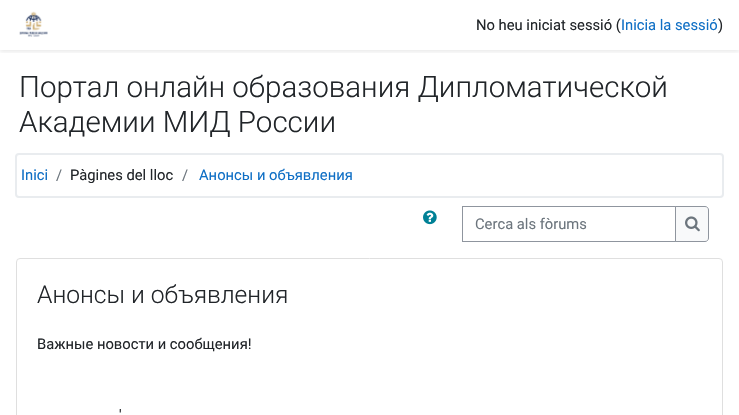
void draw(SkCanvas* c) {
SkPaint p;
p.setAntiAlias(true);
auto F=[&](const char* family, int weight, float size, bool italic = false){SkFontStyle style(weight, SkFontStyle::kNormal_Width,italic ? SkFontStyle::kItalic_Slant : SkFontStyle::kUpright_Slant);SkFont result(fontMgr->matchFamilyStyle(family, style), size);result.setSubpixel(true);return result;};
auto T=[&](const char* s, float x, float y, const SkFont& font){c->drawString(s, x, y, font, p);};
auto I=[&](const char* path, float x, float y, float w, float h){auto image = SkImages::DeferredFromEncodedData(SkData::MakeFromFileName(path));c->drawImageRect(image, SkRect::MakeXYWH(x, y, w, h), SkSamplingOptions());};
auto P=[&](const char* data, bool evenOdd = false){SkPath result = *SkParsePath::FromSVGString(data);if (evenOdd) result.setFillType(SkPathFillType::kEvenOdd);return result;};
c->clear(0xffffffff);
c->save();
c->clipRect(SkRect::MakeXYWH(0,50,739,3));
p.setColor(0x14000000);
p.setMaskFilter(SkMaskFilter::MakeBlur(kNormal_SkBlurStyle, 2));
c->drawRect(SkRect::MakeXYWH(0,2,739,50),p);
p.setMaskFilter(nullptr);
c->restore();
I("1.png",19,11,29,26);
auto f1 = F("Roboto",400,14.75);
p.setColor(0xff212529);
T("No heu iniciat sessió (",476,30,f1);
p.setColor(0xff0f6fc5);
T("Inicia la sessió",621,30,f1);
p.setColor(0xff212529);
T(")",718,30,f1);
auto f2 = F("Roboto",300,29.5);
T("Портал онлайн образования Дипломатической",19,97,f2);
T("Академии МИД России",19,132,f2);
p.setStroke(true);
p.setStrokeWidth(2);
p.setColor(0xffe9ecef);
c->drawRoundRect(SkRect::MakeXYWH(16,154,707,43),3,3,p);
p.setStroke(false);
p.setColor(0xff0f6fc5);
T("Inici",21,180,f1);
p.setColor(0xff6c757d);
T("/",56,180,f1);
p.setColor(0xff212529);
T("Pàgines del lloc",70,180,f1);
p.setColor(0xff6c757d);
T("/",182,180,f1);
p.setColor(0xff0f6fc5);
T("Анонсы и объявления",199,180,f1);
I("2.png",423,210,14,15);
p.setStroke(true);
p.setStrokeWidth(1);
p.setColor(0xff8f959e);
c->drawRect(SkRect::MakeXYWH(462.5,206.5,213,35),p);
p.setStroke(false);
p.setColor(0xff6c757d);
T("Cerca als fòrums",475,229,f1);
p.setColor(0xfff8f9fa);
c->drawPath(P("M675.5 206.5h29.5c2 0 3.5 1.5 3.5 3.5v28c0 2-1.5 3.5-3.5 3.5h-29.5z"),p);
p.setStroke(true);
p.setColor(0xff8f959e);
c->drawPath(P("M675.5 206.5h29.5c2 0 3.5 1.5 3.5 3.5v28c0 2-1.5 3.5-3.5 3.5h-29.5z"),p);
I("3.png",685,216,15,16);
p.setColor(0xffdfdfdf);
c->drawRoundRect(SkRect::MakeXYWH(16.5,258.5,706,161),3.5,3.5,p);
auto f3 = F("Roboto",300,24.6);
p.setStroke(false);
p.setColor(0xff212529);
T("Анонсы и объявления",37,303,f3);
T("Важные новости и сообщения!",37,349,f1);
T("'",119,420,f1);
}
